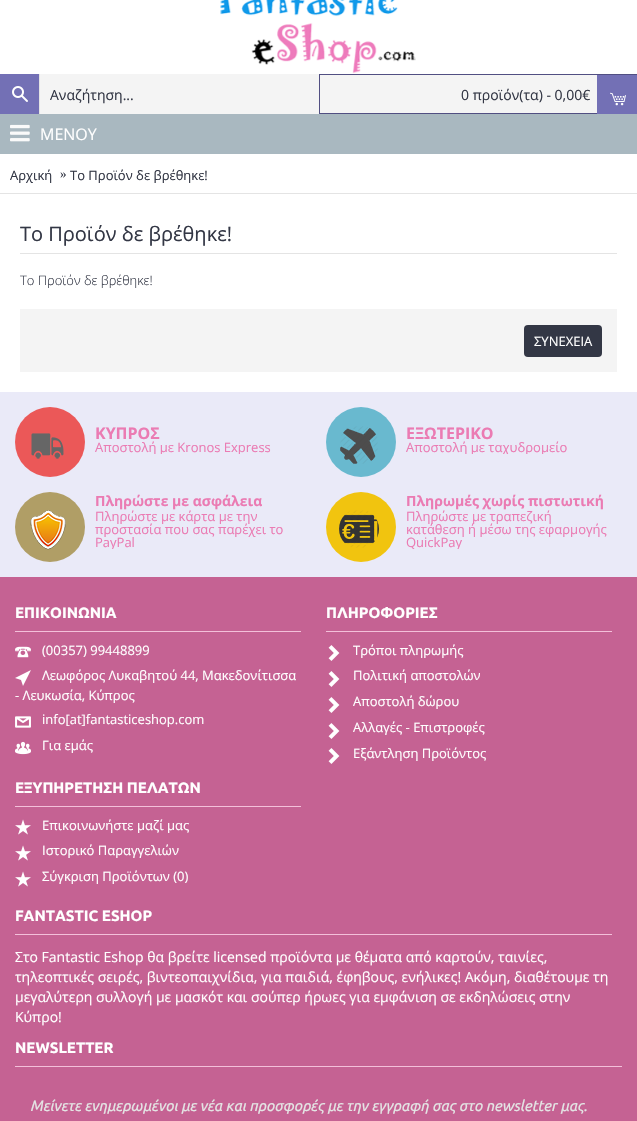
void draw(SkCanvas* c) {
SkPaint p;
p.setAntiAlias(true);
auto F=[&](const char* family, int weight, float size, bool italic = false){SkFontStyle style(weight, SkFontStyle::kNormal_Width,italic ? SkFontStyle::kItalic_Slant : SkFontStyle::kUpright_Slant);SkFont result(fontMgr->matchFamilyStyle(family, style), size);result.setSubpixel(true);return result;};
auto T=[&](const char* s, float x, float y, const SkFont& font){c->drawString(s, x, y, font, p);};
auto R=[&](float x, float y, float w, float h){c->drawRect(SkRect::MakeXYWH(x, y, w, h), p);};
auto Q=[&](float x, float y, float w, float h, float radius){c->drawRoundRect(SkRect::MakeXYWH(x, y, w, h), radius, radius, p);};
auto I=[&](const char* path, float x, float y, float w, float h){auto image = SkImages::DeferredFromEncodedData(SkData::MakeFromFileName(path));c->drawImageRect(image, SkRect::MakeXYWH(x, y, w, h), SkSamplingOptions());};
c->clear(0xffffffff);
I("1.png",220,0,196,74);
p.setColor(0xff7370b5);
R(0,74,39,40);
p.setColor(0xffe4e4e4);
R(39,74,1,40);
I("2.png",12,86,16,16);
p.setColor(0xfff4f4f4);
R(40,74,279,40);
auto f1 = F("Open Sans",400,14);
p.setColor(0xff333745);
T("Αναζήτηση...",50,100,f1);
p.setColor(0xfff4f4f4);
R(320,75,277,38);
p.setColor(0xff514f82);
R(319,74,318,1);
R(319,113,278,1);
R(319,74,1,40);
p.setColor(0xff333745);
T("0 προϊόν(τα) - 0,00€",461,100,f1);
p.setColor(0xff7370b5);
R(597,75,40,39);
I("3.png",610,92,16,14);
p.setColor(0xffa9b8c0);
R(0,114,637,40);
I("4.png",10,124,20,18);
auto f2 = F("Open Sans",400,16);
p.setColor(0xffffffff);
T("ΜΕΝΟΥ",40,140,f2);
p.setColor(0xffe4e4e4);
R(0,193,637,1);
auto f3 = F("Open Sans",400,13);
p.setColor(0xff333745);
T("Αρχική",10,180,f3);
auto f4 = F("Liberation Serif",400,13);
T("»",60,178,f4);
T("Το Προϊόν δε βρέθηκε!",70,180,f3);
p.setColor(0xffe4e4e4);
R(20,253,597,1);
auto f5 = F("Open Sans",400,20);
p.setColor(0xff333745);
T("Το Προϊόν δε βρέθηκε!",20,241,f5);
auto f6 = F("Open Sans",300,13);
T("Το Προϊόν δε βρέθηκε!",20,285,f6);
p.setColor(0xfff4f4f4);
R(20,309,597,63);
p.setColor(0xff333745);
Q(524,325,78,32,4);
p.setColor(0xffffffff);
T("ΣΥΝΕΧΕΙΑ",534,346,f3);
p.setColor(0xffc56293);
R(0,577,637,544);
p.setColor(0xffeaeaf8);
R(0,392,637,185);
p.setColor(0xffeb5858);
c->drawCircle(50,442,35,p);
I("5.png",31,433,33,26);
auto f7 = F("Open Sans",700,16);
p.setColor(0xffeb7bb3);
T("ΚΥΠΡΟΣ",95,439,f7);
c->save();
c->clipRect(SkRect::MakeXYWH(95,441,206,13));
T("Αποστολή με Kronos Express",95,452,f3);
c->restore();
p.setColor(0xff69b9cf);
c->drawCircle(361,442,35,p);
I("6.png",340,426,38,38);
p.setColor(0xffeb7bb3);
T("ΕΞΩΤΕΡΙΚΟ",406,439,f7);
c->save();
c->clipRect(SkRect::MakeXYWH(406,441,206,13));
T("Αποστολή με ταχυδρομείο",406,452,f3);
c->restore();
p.setColor(0xffb09e66);
c->drawCircle(50,527,35,p);
I("7.png",30,510,36,40);
auto f8 = F("Open Sans",700,14);
p.setColor(0xffeb7bb3);
T("Πληρώστε με ασφάλεια",95,506,f8);
T("Πληρώστε με κάρτα με την",95,521,f3);
T("προστασία που σας παρέχει το",95,534,f3);
c->save();
c->clipRect(SkRect::MakeXYWH(95,510,206,39));
T("PayPal",95,547,f3);
c->restore();
p.setColor(0xfff1c40f);
c->drawCircle(361,527,35,p);
I("8.png",339,510,40,38);
p.setColor(0xffeb7bb3);
T("Πληρωμές χωρίς πιστωτική",406,506,f8);
T("Πληρώστε με τραπεζική",406,521,f3);
T("κατάθεση ή μέσω της εφαρμογής",406,534,f3);
c->save();
c->clipRect(SkRect::MakeXYWH(406,510,206,39));
T("QuickPay",406,547,f3);
c->restore();
p.setColor(0xfff3c0da);
R(15,631,286,1);
auto f9 = F("Ubuntu",700,15);
p.setColor(0xffffffff);
T("ΕΠΙΚΟΙΝΩΝΙΑ",15,618,f9);
I("9.png",15,646,16,12);
T("(00357) 99448899",42,655,f3);
I("10.png",15,670,16,16);
T("Λεωφόρος Λυκαβητού 44, Μακεδονίτισσα",42,680,f3);
T("- Λευκωσία, Κύπρος",15,700,f3);
I("11.png",15,716,16,12);
T("info[at]fantasticeshop.com",42,724,f3);
I("12.png",15,741,16,14);
T("Για εμάς",42,750,f3);
p.setColor(0xfff3c0da);
R(326,631,286,1);
p.setColor(0xffffffff);
T("ΠΛΗΡΟΦΟΡΙΕΣ",326,618,f9);
I("13.png",328,645,12,16);
T("Τρόποι πληρωμής",353,655,f3);
I("13.png",328,671,12,16);
T("Πολιτική αποστολών",353,680,f3);
I("13.png",328,697,12,16);
T("Αποστολή δώρου",353,706,f3);
I("13.png",328,723,12,16);
T("Αλλαγές - Επιστροφές",353,732,f3);
I("13.png",328,748,12,16);
T("Εξάντληση Προϊόντος",353,758,f3);
p.setColor(0xfff3c0da);
R(15,806,286,1);
p.setColor(0xffffffff);
T("ΕΞΥΠΗΡΕΤΗΣΗ ΠΕΛΑΤΩΝ",15,793,f9);
I("14.png",15,819,16,16);
T("Επικοινωνήστε μαζί μας",42,830,f3);
I("14.png",15,845,16,16);
T("Ιστορικό Παραγγελιών",42,855,f3);
I("14.png",15,871,16,16);
T("Σύγκριση Προϊόντων (0)",42,881,f3);
p.setColor(0xfff3c0da);
R(15,934,597,1);
p.setColor(0xffffffff);
T("FANTASTIC ESHOP",15,921,f9);
T("Στο Fantastic Eshop θα βρείτε licensed προϊόντα με θέματα από καρτούν, ταινίες,",15,962,f1);
T("τηλεοπτικές σειρές, βιντεοπαιχνίδια, για παιδιά, έφηβους, ενήλικες! Ακόμη, διαθέτουμε τη",15,982,f1);
T("μεγαλύτερη συλλογή με μασκότ και σούπερ ήρωες για εμφάνιση σε εκδηλώσεις στην",15,1002,f1);
T("Κύπρο!",15,1022,f1);
p.setColor(0xfff3c0da);
R(15,1066,607,1);
p.setColor(0xffffffff);
T("NEWSLETTER",15,1053,f9);
auto f10 = F("Ubuntu",400,15,true);
p.setColor(0xffe4e4e4);
T("Μείνετε ενημερωμένοι με νέα και προσφορές με την εγγραφή σας στο newsletter μας.",30,1111,f10);
}
